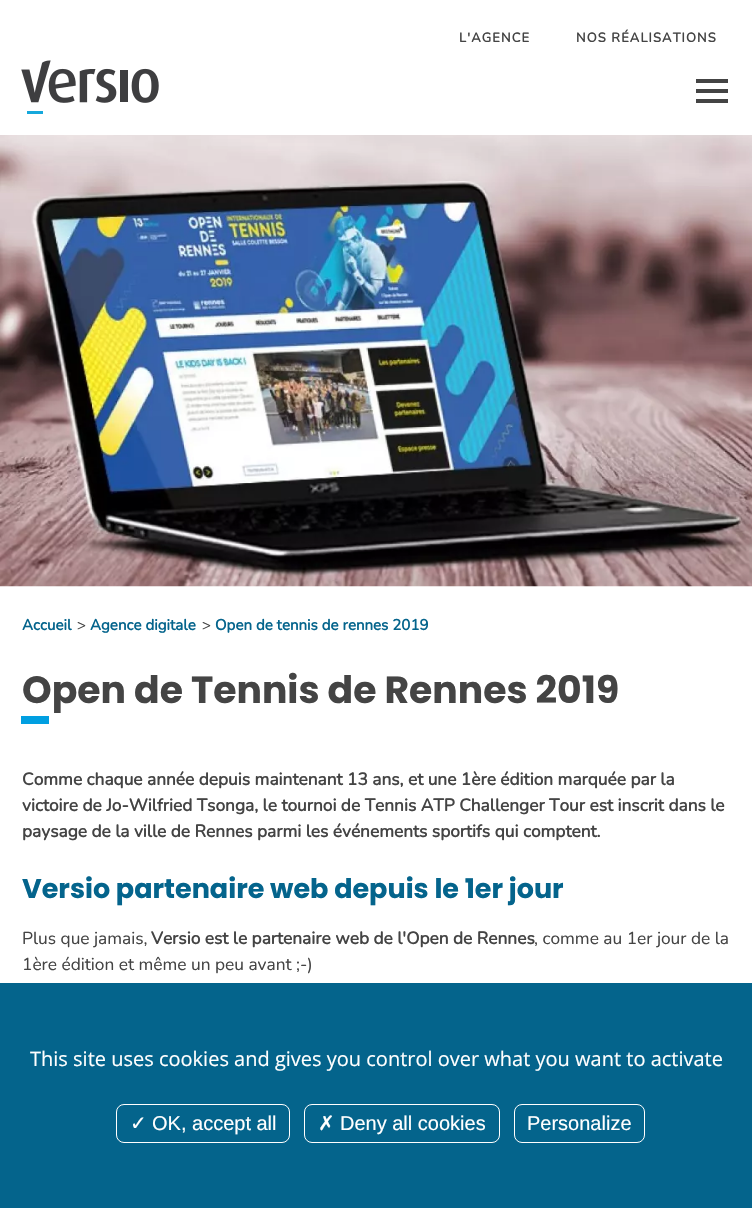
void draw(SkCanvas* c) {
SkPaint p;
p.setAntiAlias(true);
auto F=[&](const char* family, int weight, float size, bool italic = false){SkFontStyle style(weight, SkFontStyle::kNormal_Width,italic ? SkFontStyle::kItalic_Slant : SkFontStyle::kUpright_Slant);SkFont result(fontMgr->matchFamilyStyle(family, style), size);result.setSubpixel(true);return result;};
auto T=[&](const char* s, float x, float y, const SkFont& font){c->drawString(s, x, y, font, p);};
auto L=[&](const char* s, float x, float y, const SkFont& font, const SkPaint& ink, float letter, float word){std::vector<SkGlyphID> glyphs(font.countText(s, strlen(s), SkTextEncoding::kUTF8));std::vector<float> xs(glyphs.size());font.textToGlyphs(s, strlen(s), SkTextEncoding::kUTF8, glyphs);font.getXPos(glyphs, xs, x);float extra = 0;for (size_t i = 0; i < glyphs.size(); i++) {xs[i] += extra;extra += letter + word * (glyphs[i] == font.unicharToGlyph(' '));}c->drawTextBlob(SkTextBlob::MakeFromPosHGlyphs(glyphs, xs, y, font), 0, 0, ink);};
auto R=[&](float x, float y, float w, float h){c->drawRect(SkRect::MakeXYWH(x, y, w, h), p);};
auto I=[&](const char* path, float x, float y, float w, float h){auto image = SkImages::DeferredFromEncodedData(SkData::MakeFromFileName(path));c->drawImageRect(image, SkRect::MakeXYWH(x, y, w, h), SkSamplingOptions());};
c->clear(0xffffffff);
auto f1 = F("Nunito",700,13);
p.setColor(0xff444444);
L("L'AGENCE",459,42,f1,p,1.1,0);
L("NOS RÉALISATIONS",576,42,f1,p,1.1,0);
I("1.png",21,60,138,54);
R(696,89,32,4);
R(696,79,32,4);
R(696,99,32,4);
I("2.png",0,135,752,452);
auto f2 = F("Nunito",700,15.1);
p.setColor(0xff04648c);
T("Accueil",22,630,f2);
auto f3 = F("Nunito",200,15.1);
p.setColor(0xff444444);
T(">",77,630,f3);
p.setColor(0xff04648c);
T("Agence digitale",90,630,f2);
p.setColor(0xff444444);
T(">",202,630,f3);
p.setColor(0xff04648c);
T("Open de tennis de rennes 2019",215,630,f2);
auto f4 = F("Poppins",700,37.75);
p.setColor(0xff444444);
T("Open de Tennis de Rennes 2019",22,703,f4);
p.setColor(0xff009fe1);
R(21,716,28,8);
auto f5 = F("Nunito",700,17.3);
p.setColor(0xff444444);
T("Comme chaque année depuis maintenant 13 ans, et une 1ère édition marquée par la",22,785,f5);
T("victoire de Jo-Wilfried Tsonga, le tournoi de Tennis ATP Challenger Tour est inscrit dans le",22,811,f5);
T("paysage de la ville de Rennes parmi les événements sportifs qui comptent.",22,837,f5);
auto f6 = F("Poppins",700,27);
p.setColor(0xff04648c);
T("Versio partenaire web depuis le 1er jour",22,898,f6);
auto f7 = F("Nunito",200,17.3);
p.setColor(0xff444444);
T("Plus que jamais,",22,944,f7);
T("Versio est le partenaire web de l'Open de Rennes",151,944,f5);
T(", comme au 1er jour de la",534,944,f7);
T("1ère édition et même un peu avant ;-)",22,970,f7);
p.setColor(0xff04648c);
R(0,983,752,225);
auto f8 = F("Open Sans",400,20);
p.setColor(0xffffffff);
T("This site uses cookies and gives you control over what you want to activate",30,1066,f8);
p.setStroke(true);
p.setStrokeWidth(1);
c->drawRoundRect(SkRect::MakeXYWH(116.5,1104.5,173,38),7.5,7.5,p);
auto f9 = F("DejaVu Sans",400,20);
p.setStroke(false);
T("✓",130,1130,f9);
auto f10 = F("Liberation Sans",400,20);
T("OK, accept all",152,1130,f10);
p.setStroke(true);
c->drawRoundRect(SkRect::MakeXYWH(304.5,1104.5,195,38),7.5,7.5,p);
p.setStroke(false);
T("✗",318,1130,f9);
T("Deny all cookies",340,1130,f10);
p.setStroke(true);
c->drawRoundRect(SkRect::MakeXYWH(514.5,1104.5,130,38),7.5,7.5,p);
p.setStroke(false);
T("Personalize",527,1130,f10);
}
